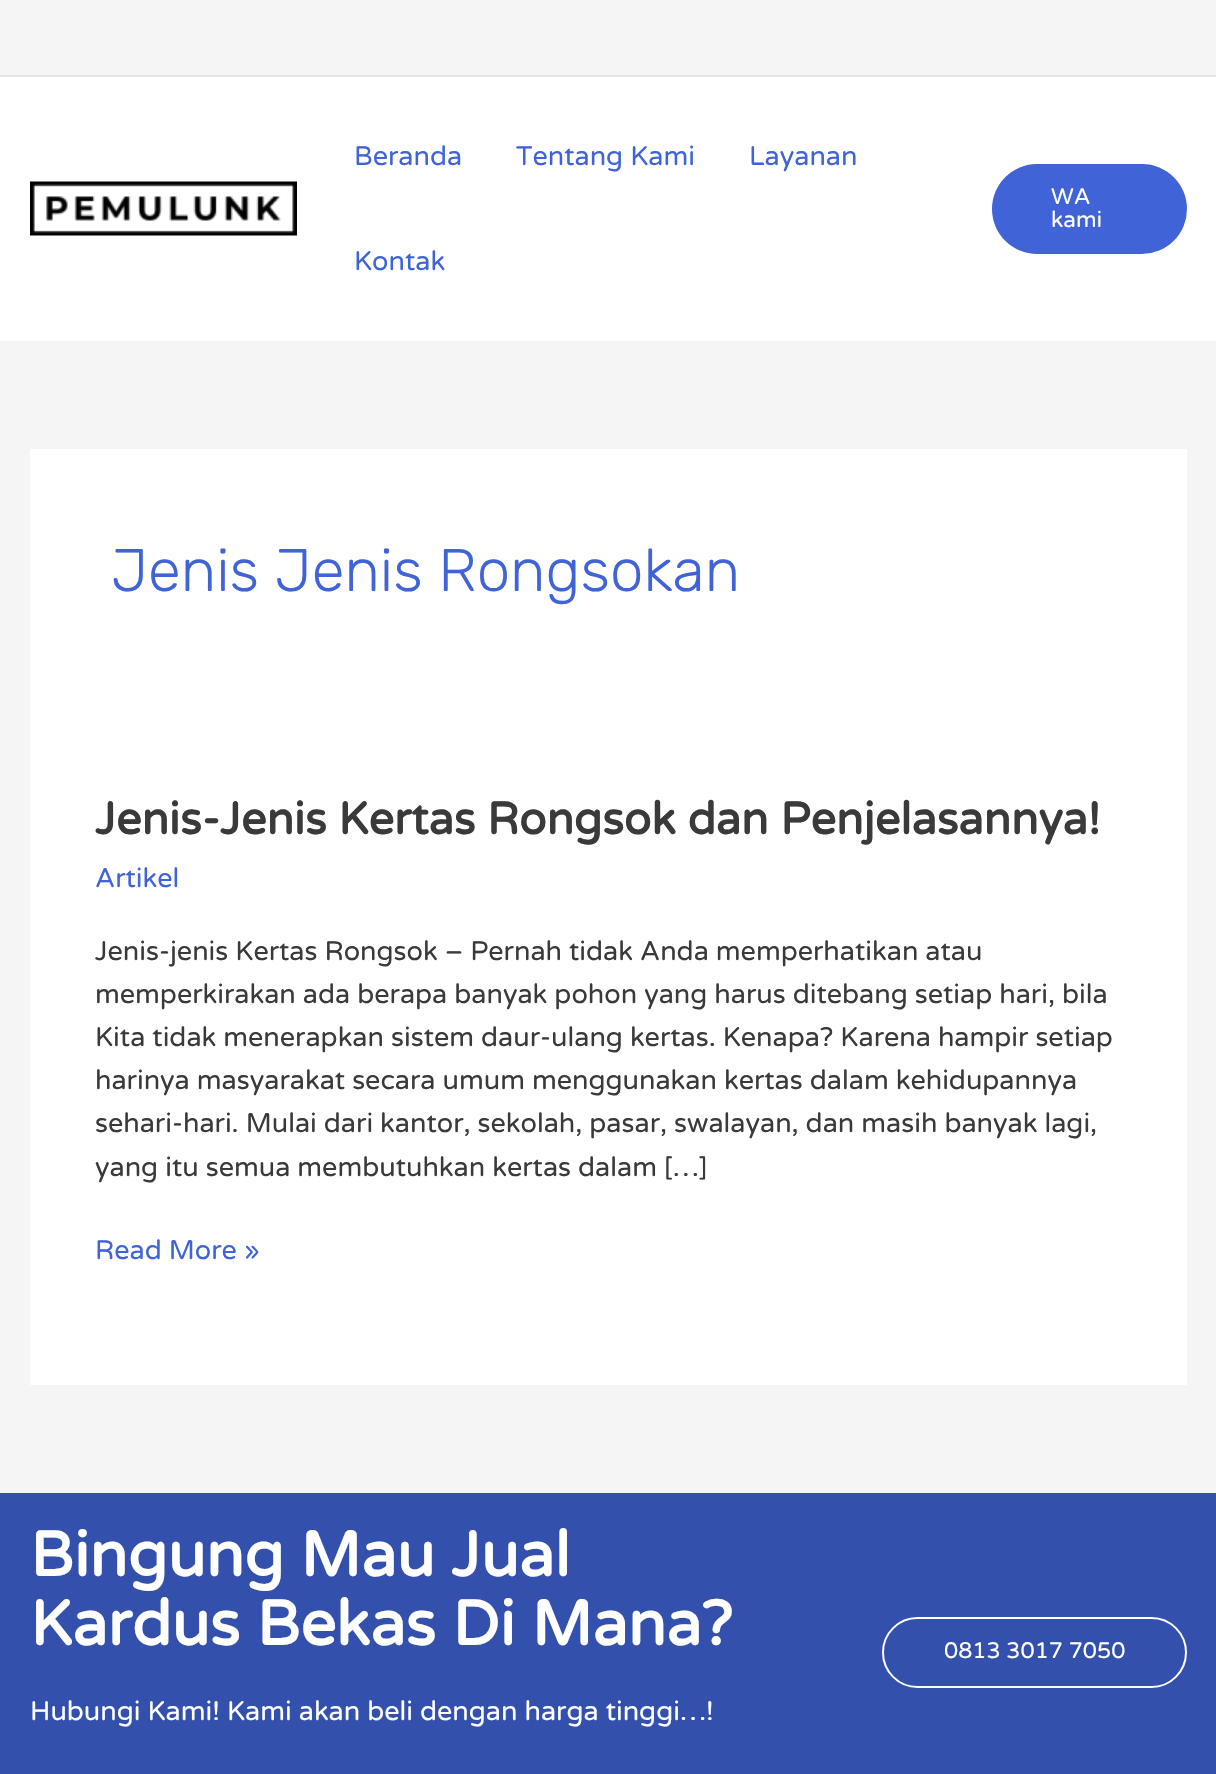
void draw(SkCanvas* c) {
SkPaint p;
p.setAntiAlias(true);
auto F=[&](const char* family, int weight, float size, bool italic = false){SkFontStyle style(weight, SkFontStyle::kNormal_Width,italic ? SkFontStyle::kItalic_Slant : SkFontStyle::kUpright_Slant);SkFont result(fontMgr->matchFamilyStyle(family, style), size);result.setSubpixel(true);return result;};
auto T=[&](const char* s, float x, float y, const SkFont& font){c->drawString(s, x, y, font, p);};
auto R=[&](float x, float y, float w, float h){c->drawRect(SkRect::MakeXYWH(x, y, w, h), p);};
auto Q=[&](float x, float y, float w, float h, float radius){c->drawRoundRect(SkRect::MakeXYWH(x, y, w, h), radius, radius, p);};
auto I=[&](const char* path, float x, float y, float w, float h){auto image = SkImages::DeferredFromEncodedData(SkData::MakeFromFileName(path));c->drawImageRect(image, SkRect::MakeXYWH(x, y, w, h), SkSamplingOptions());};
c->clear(0xfff5f5f5);
p.setColor(0xffe5e5e5);
R(0,75,1216,2);
p.setColor(0xffffffff);
R(0,77,1216,264);
I("1.png",30,181,267,55);
auto f1 = F("Varela Round",400,27);
p.setColor(0xff4064d7);
T("Beranda",354,165,f1);
T("Tentang Kami",516,165,f1);
T("Layanan",749,165,f1);
T("Kontak",354,270,f1);
Q(992,164,195,90,45);
auto f2 = F("Varela Round",400,22.5);
p.setColor(0xffffffff);
T("WA",1051,204,f2);
T("kami",1051,227,f2);
R(30,449,1157,936);
auto f3 = F("Rubik",300,60);
p.setColor(0xff4064d7);
T("Jenis Jenis Rongsokan",111,591,f3);
auto f4 = F("Varela Round",700,45);
p.setColor(0xff3a3a3a);
T("Jenis-Jenis Kertas Rongsok dan Penjelasannya!",95,834,f4);
p.setColor(0xff4064d7);
T("Artikel",95,887,f1);
p.setColor(0xff3a3a3a);
T("Jenis-jenis Kertas Rongsok – Pernah tidak Anda memperhatikan atau",95,960,f1);
T("memperkirakan ada berapa banyak pohon yang harus ditebang setiap hari, bila",95,1003,f1);
T("Kita tidak menerapkan sistem daur-ulang kertas. Kenapa? Karena hampir setiap",95,1046,f1);
T("harinya masyarakat secara umum menggunakan kertas dalam kehidupannya",95,1089,f1);
T("sehari-hari. Mulai dari kantor, sekolah, pasar, swalayan, dan masih banyak lagi,",95,1132,f1);
T("yang itu semua membutuhkan kertas dalam […]",95,1176,f1);
p.setColor(0xff4064d7);
T("Read More »",95,1259,f1);
p.setColor(0xff3350ad);
R(0,1493,1216,281);
auto f5 = F("Varela Round",700,63);
p.setColor(0xffffffff);
T("Bingung Mau Jual",30,1576,f5);
T("Kardus Bekas Di Mana?",30,1645,f5);
T("Hubungi Kami! Kami akan beli dengan harga tinggi…!",30,1720,f1);
p.setStroke(true);
p.setStrokeWidth(2);
c->drawRoundRect(SkRect::MakeXYWH(883,1618,303,69),34.5,34.5,p);
p.setStroke(false);
T("0813 3017 7050",944,1658,f2);
}
